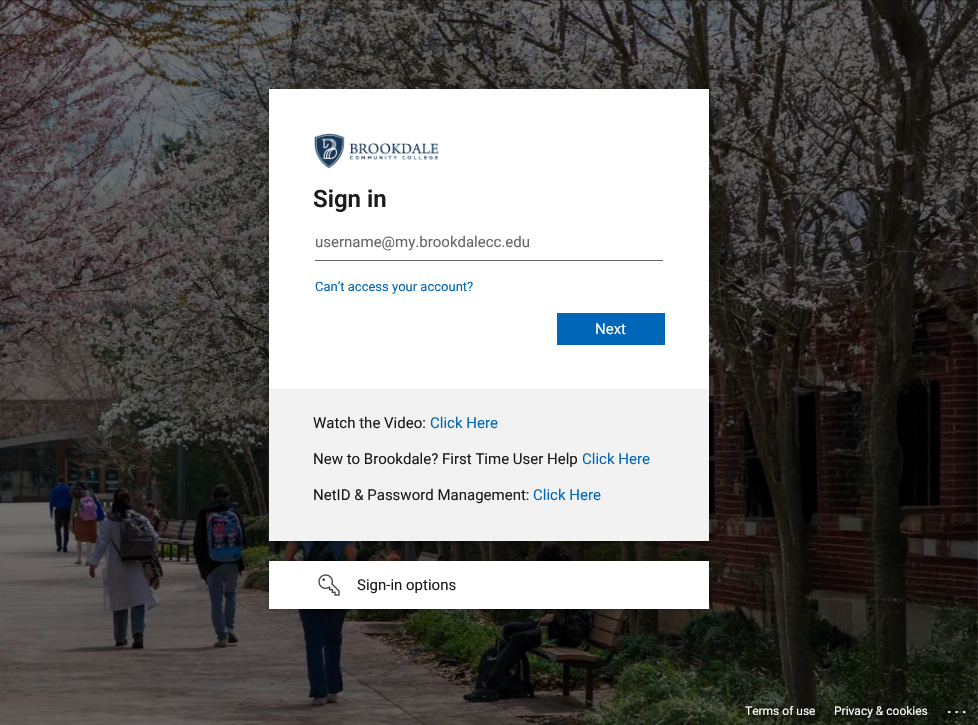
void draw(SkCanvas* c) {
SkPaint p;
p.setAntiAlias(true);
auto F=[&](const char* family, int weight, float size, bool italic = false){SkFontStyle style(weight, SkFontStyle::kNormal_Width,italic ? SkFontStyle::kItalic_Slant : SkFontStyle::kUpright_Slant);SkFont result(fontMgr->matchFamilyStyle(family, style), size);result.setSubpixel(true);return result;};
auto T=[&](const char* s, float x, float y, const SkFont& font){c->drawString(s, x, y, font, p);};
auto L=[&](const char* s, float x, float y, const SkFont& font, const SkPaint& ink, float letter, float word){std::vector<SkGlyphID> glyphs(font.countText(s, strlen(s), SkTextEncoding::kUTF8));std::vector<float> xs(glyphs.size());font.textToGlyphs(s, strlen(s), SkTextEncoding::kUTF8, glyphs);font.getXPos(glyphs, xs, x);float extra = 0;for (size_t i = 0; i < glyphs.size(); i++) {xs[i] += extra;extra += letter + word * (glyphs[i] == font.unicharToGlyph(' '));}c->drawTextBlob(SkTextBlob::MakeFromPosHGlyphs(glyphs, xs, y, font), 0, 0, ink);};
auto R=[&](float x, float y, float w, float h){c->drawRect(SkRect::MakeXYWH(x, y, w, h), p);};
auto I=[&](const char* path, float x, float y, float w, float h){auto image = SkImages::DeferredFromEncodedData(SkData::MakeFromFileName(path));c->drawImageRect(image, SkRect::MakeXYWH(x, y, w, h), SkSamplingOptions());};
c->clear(0xffffffff);
I("1.png",0,0,978,725);
p.setColor(0x33000000);
p.setMaskFilter(SkMaskFilter::MakeBlur(kNormal_SkBlurStyle, 3));
c->drawRect(SkRect::MakeXYWH(269,91,440,452),p);
p.setMaskFilter(nullptr);
p.setColor(0xffffffff);
R(269,89,440,300);
I("2.png",314,133,125,36);
auto f1 = F("Roboto",600,24);
p.setColor(0xff1b1b1b);
T("Sign in",313,207,f1);
p.setColor(0xff666666);
R(315,260,348,1);
auto f2 = F("Roboto",400,15);
T("username@my.brookdalecc.edu",315,247,f2);
auto f3 = F("Roboto",400,13);
p.setColor(0xff0067b8);
T("Can’t access your account?",315,291,f3);
R(557,313,108,32);
p.setColor(0xffffffff);
T("Next",595,334,f2);
p.setColor(0xfff2f2f2);
R(269,389,440,152);
p.setColor(0xff1b1b1b);
T("Watch the Video:",313,428,f2);
p.setColor(0xff0067b8);
T("Click Here",430,428,f2);
p.setColor(0xff1b1b1b);
T("New to Brookdale? First Time User Help",313,464,f2);
p.setColor(0xff0067b8);
T("Click Here",582,464,f2);
p.setColor(0xff1b1b1b);
T("NetID & Password Management:",313,500,f2);
p.setColor(0xff0067b8);
T("Click Here",533,500,f2);
p.setColor(0x33000000);
p.setMaskFilter(SkMaskFilter::MakeBlur(kNormal_SkBlurStyle, 3));
c->drawRect(SkRect::MakeXYWH(269,563,440,48),p);
p.setMaskFilter(nullptr);
p.setColor(0xffffffff);
R(269,561,440,48);
I("3.png",318,574,22,22);
p.setColor(0xff1b1b1b);
T("Sign-in options",357,590,f2);
auto f4 = F("Roboto",400,12);
p.setColor(0xffffffff);
T("Terms of use",745,715,f4);
T("Privacy & cookies",834,715,f4);
auto f5 = F("Roboto",600,16);
L("...",947,713,f5,p,3,0);
}
